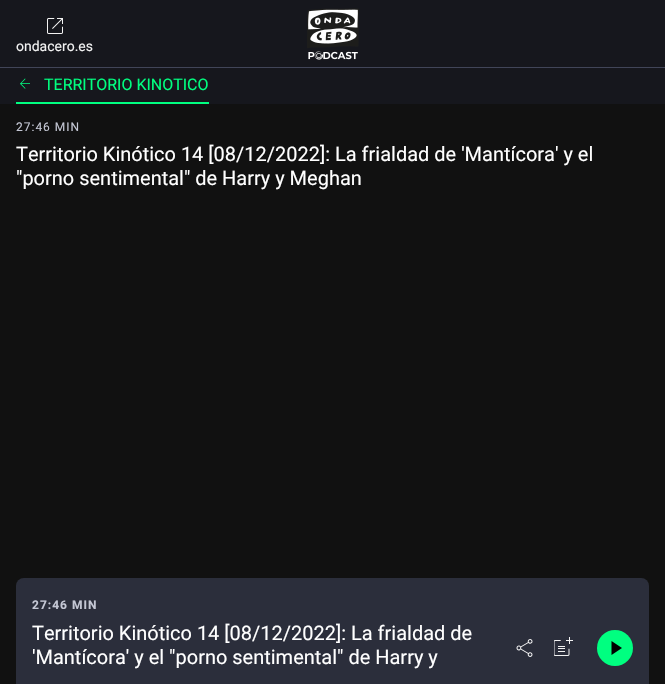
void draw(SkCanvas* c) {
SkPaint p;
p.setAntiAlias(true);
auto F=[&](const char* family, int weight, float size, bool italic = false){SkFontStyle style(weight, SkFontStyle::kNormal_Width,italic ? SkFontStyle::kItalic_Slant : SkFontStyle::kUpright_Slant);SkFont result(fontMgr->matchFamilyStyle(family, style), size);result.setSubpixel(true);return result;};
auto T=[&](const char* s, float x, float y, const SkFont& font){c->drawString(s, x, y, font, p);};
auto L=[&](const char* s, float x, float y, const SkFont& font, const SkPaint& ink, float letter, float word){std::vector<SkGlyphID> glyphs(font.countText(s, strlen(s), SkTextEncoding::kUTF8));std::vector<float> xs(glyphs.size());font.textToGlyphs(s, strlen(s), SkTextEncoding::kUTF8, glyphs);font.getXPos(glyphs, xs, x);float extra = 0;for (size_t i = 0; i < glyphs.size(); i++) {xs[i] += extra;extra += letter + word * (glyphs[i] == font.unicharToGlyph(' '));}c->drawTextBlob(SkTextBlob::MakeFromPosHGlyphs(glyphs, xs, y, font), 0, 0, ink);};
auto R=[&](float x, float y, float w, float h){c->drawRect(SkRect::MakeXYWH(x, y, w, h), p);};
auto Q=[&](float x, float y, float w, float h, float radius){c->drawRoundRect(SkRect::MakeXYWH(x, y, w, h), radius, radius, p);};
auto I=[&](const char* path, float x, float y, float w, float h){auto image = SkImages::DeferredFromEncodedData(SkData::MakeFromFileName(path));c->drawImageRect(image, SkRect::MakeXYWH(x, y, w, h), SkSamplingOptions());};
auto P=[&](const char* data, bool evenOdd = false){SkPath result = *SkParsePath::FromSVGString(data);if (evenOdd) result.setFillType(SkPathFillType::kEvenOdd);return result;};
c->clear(0xff111111);
p.setColor(0xff16171d);
R(0,0,665,67);
p.setColor(0xff414558);
R(0,67,665,1);
I("1.png",47,18,16,16);
auto f1 = F("Roboto",400,14);
p.setColor(0xfff2f2f2);
T("ondacero.es",16,51,f1);
I("2.png",307,8,52,52);
p.setColor(0xff16171d);
R(0,68,665,36);
p.setColor(0xff00ff80);
R(16,102,193,2);
I("3.png",20,78,10,11);
auto f2 = F("Roboto",400,16);
T("TERRITORIO KINOTICO",44,90,f2);
auto f3 = F("Roboto",400,12);
p.setColor(0xffc4c7d4);
L("27:46 MIN",16,131,f3,p,1,0);
auto f4 = F("Roboto",400,20);
p.setColor(0xffffffff);
T("Territorio Kinótico 14 [08/12/2022]: La frialdad de 'Mantícora' y el",16,161,f4);
T("\"porno sentimental\" de Harry y Meghan",16,185,f4);
p.setColor(0xff2b2e3b);
Q(16,578,633,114,8);
auto f5 = F("Roboto",700,12);
p.setColor(0xffc4c7d4);
L("27:46 MIN",32,609,f5,p,1,0);
p.setColor(0xffffffff);
T("Territorio Kinótico 14 [08/12/2022]: La frialdad de",32,640,f4);
T("'Mantícora' y el \"porno sentimental\" de Harry y",32,664,f4);
I("4.png",516,639,17,18);
I("5.png",554,637,19,19);
p.setColor(0xff00ff80);
c->drawCircle(615,648,18,p);
p.setColor(0xff000000);
c->drawPath(P("M611.5 641v14l10.5-7z"),p);
}
